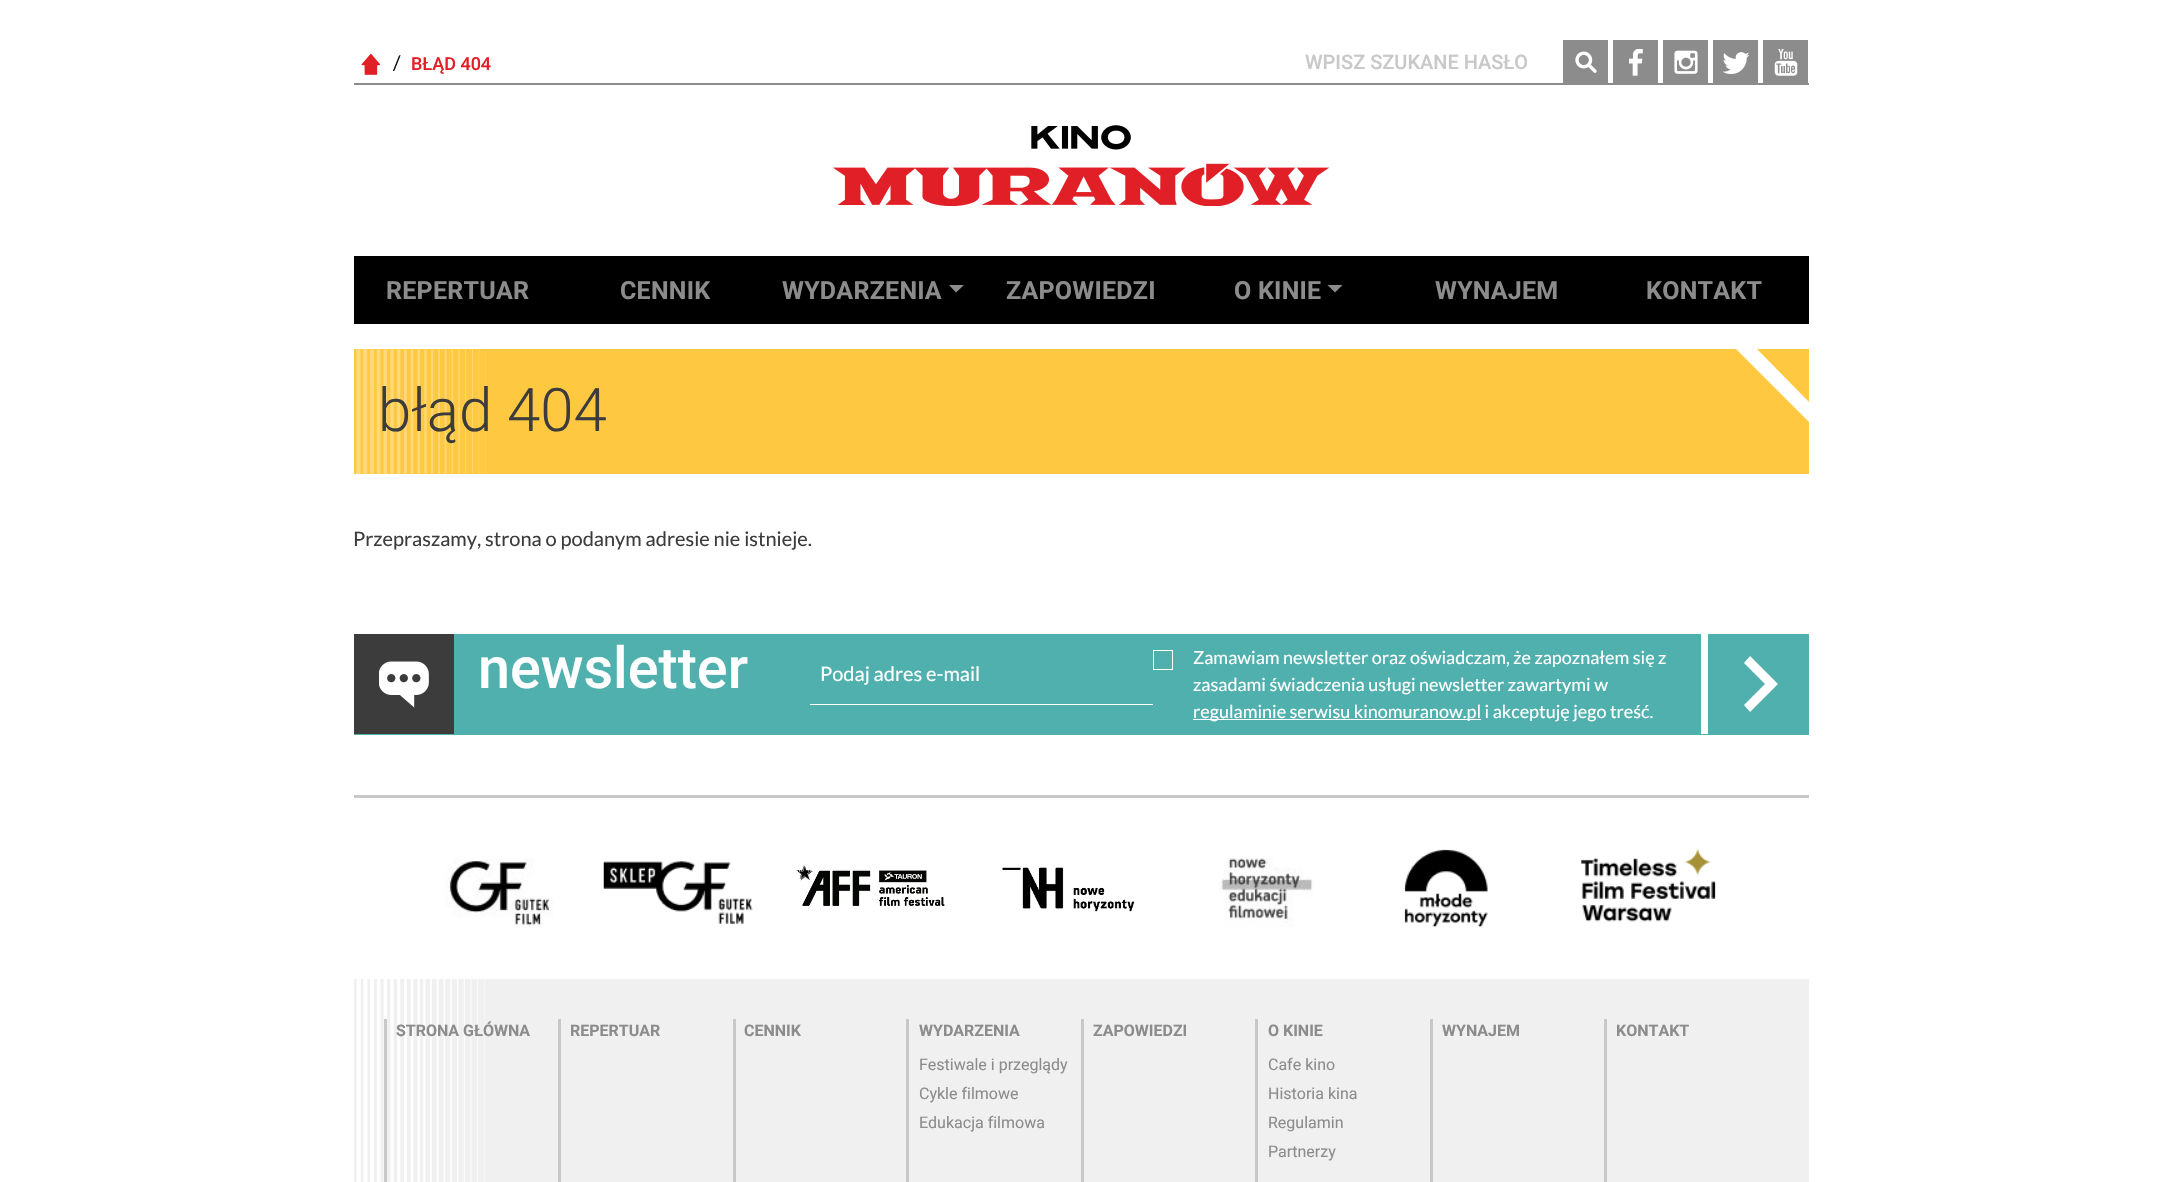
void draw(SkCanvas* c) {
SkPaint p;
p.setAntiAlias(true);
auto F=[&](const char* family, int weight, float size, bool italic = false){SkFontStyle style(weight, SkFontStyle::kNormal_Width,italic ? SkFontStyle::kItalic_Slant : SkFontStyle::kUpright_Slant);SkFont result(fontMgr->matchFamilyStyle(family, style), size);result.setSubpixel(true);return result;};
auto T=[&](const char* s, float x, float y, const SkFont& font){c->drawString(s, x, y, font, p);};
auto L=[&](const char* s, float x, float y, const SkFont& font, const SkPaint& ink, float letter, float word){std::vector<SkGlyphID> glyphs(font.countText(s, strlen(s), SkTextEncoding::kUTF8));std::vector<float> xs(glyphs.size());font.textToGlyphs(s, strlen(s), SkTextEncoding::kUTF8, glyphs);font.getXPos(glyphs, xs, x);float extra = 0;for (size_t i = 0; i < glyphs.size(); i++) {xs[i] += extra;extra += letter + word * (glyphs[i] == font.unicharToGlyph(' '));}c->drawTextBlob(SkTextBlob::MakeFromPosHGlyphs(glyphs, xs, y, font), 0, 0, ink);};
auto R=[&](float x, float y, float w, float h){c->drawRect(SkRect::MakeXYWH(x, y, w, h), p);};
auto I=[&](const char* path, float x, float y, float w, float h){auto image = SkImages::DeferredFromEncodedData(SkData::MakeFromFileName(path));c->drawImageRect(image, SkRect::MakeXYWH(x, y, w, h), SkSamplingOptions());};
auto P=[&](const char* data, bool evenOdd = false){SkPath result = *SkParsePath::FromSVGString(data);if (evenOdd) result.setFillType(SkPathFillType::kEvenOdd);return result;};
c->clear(0xffffffff);
I("1.png",361,54,19,21);
auto f1 = F("Lato",400,20);
p.setColor(0xff111111);
T("/",393,70,f1);
auto f2 = F("Roboto",500,18);
p.setColor(0xffe01f26);
T("BŁĄD 404",411,70,f2);
auto f3 = F("Roboto",500,20);
p.setColor(0xffc8c8c8);
T("WPISZ SZUKANE HASŁO",1305,69,f3);
p.setColor(0xff8c8c8c);
R(1563,40,45,43);
I("2.png",1575,51,22,22);
R(1613,40,45,43);
I("3.png",1629,49,14,27);
R(1663,40,45,43);
I("4.png",1674,50,24,24);
R(1713,40,45,43);
I("5.png",1723,52,26,22);
R(1763,40,45,43);
I("6.png",1774,49,24,27);
R(354,83,1455,2);
I("7.png",833,125,496,81);
p.setColor(0xff000000);
R(354,256,1455,68);
auto f4 = F("Roboto",700,25);
p.setColor(0xff8c8c8c);
L("REPERTUAR",386,299,f4,p,.25,0);
L("CENNIK",620,299,f4,p,.25,0);
L("WYDARZENIA",782,299,f4,p,.25,0);
c->drawPath(P("M949 285h15l-8 7.5z"),p);
L("ZAPOWIEDZI",1006,299,f4,p,.25,0);
L("O KINIE",1234,299,f4,p,.25,0);
c->drawPath(P("M1327.5 285h15l-7.5 7.5z"),p);
L("WYNAJEM",1435,299,f4,p,.25,0);
L("KONTAKT",1646,299,f4,p,.25,0);
p.setColor(0xfffec941);
R(354,349,1455,125);
I("8.png",356,349,130,125);
auto f5 = F("Roboto",300,60);
p.setColor(0xff3c3c3c);
T("błąd 404",378,431,f5);
c->save();
c->clipRect(SkRect::MakeXYWH(1735,349,74,74));
p.setColor(0xffffffff);
c->drawPath(P("M1735 348h21l53 54v20z"),p);
c->restore();
p.setColor(0xff3c3c3c);
T("Przepraszamy, strona o podanym adresie nie istnieje.",353,546,f1);
p.setColor(0xff50b0ae);
R(354,634,1455,101);
p.setColor(0xff3c3c3c);
R(354,634,100,100);
I("9.png",379,661,50,47);
auto f6 = F("Roboto",500,57.5);
p.setColor(0xffffffff);
T("newsletter",478,688,f6);
R(810,704,343,1);
T("Podaj adres e-mail",820,681,f1);
p.setStroke(true);
p.setStrokeWidth(1);
c->drawRect(SkRect::MakeXYWH(1153.5,650.5,19,19),p);
auto f7 = F("Lato",400,18);
p.setStroke(false);
T("Zamawiam newsletter oraz oświadczam, że zapoznałem się z",1193,664,f7);
T("zasadami świadczenia usługi newsletter zawartymi w",1193,691,f7);
R(1193,719,288,1);
T("regulaminie serwisu kinomuranow.pl i akceptuję jego treść.",1193,718,f7);
R(1701,634,7,100);
c->drawPath(P("M1750 656l-6 7l21 21l-21 21l6 7l28-28z"),p);
p.setColor(0xffc8c8c8);
R(354,795,1455,3);
I("10.png",445,858,109,70);
I("11.png",603,861,150,63);
I("12.png",796,865,149,41);
I("13.png",1002,867,133,45);
I("14.png",1219,858,95,69);
I("15.png",1404,849,84,78);
I("16.png",1581,848,135,74);
p.setColor(0xfff0f0f0);
R(354,979,1455,203);
I("17.png",356,979,129,203);
p.setColor(0xffc8c8c8);
R(384,1019,3,163);
auto f8 = F("Roboto",700,16);
p.setColor(0xff8c8c8c);
T("STRONA GŁÓWNA",396,1036,f8);
p.setColor(0xffc8c8c8);
R(558,1019,3,163);
p.setColor(0xff8c8c8c);
T("REPERTUAR",570,1036,f8);
p.setColor(0xffc8c8c8);
R(733,1019,3,163);
p.setColor(0xff8c8c8c);
T("CENNIK",744,1036,f8);
p.setColor(0xffc8c8c8);
R(906,1019,3,163);
p.setColor(0xff8c8c8c);
T("WYDARZENIA",919,1036,f8);
auto f9 = F("Roboto",400,16);
T("Festiwale i przeglądy",919,1070,f9);
T("Cykle filmowe",919,1099,f9);
T("Edukacja filmowa",919,1128,f9);
p.setColor(0xffc8c8c8);
R(1081,1019,3,163);
p.setColor(0xff8c8c8c);
T("ZAPOWIEDZI",1093,1036,f8);
p.setColor(0xffc8c8c8);
R(1255,1019,3,163);
p.setColor(0xff8c8c8c);
T("O KINIE",1268,1036,f8);
T("Cafe kino",1268,1070,f9);
T("Historia kina",1268,1099,f9);
T("Regulamin",1268,1128,f9);
T("Partnerzy",1268,1157,f9);
p.setColor(0xffc8c8c8);
R(1430,1019,3,163);
p.setColor(0xff8c8c8c);
T("WYNAJEM",1442,1036,f8);
p.setColor(0xffc8c8c8);
R(1604,1019,3,163);
p.setColor(0xff8c8c8c);
T("KONTAKT",1616,1036,f8);
}
